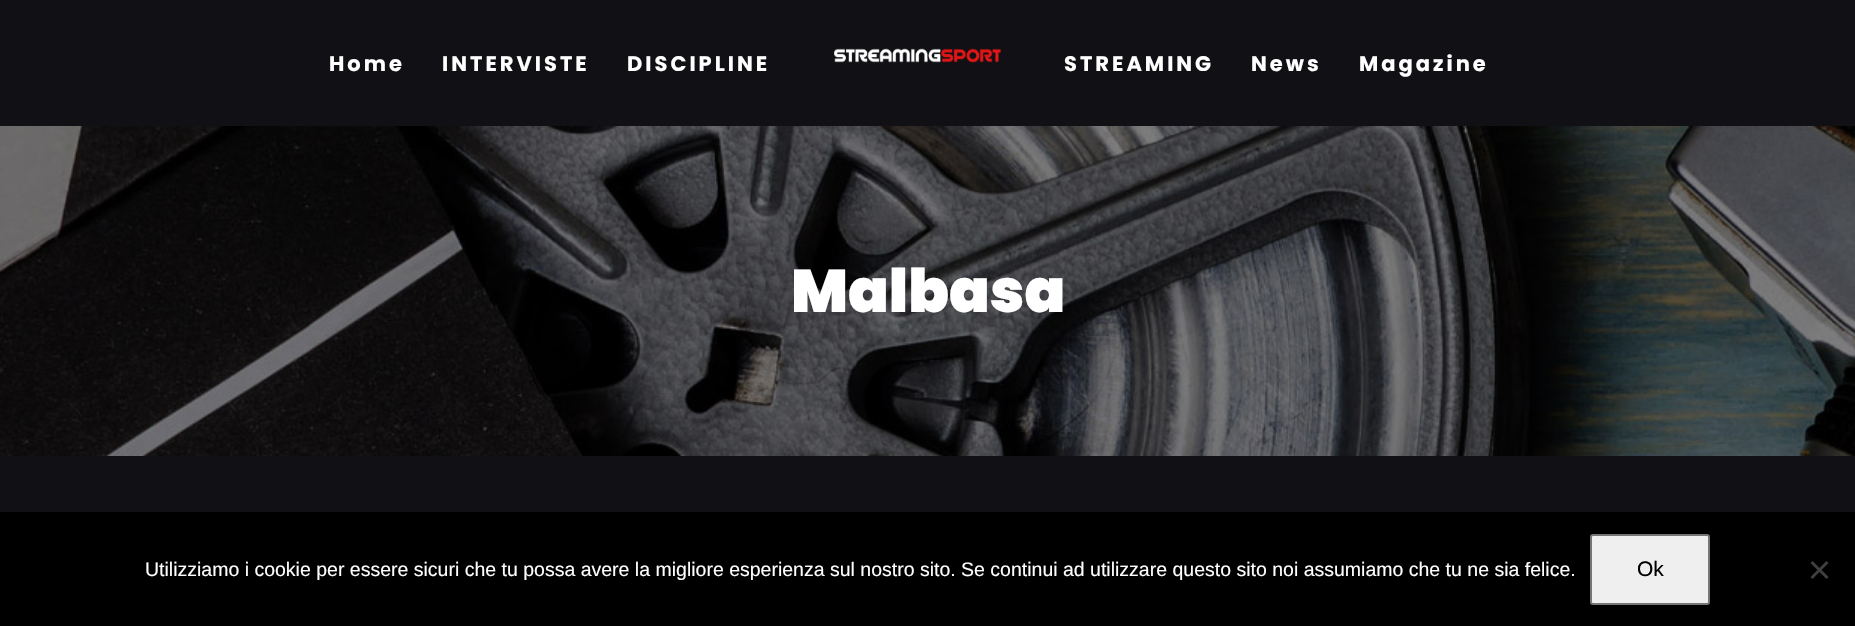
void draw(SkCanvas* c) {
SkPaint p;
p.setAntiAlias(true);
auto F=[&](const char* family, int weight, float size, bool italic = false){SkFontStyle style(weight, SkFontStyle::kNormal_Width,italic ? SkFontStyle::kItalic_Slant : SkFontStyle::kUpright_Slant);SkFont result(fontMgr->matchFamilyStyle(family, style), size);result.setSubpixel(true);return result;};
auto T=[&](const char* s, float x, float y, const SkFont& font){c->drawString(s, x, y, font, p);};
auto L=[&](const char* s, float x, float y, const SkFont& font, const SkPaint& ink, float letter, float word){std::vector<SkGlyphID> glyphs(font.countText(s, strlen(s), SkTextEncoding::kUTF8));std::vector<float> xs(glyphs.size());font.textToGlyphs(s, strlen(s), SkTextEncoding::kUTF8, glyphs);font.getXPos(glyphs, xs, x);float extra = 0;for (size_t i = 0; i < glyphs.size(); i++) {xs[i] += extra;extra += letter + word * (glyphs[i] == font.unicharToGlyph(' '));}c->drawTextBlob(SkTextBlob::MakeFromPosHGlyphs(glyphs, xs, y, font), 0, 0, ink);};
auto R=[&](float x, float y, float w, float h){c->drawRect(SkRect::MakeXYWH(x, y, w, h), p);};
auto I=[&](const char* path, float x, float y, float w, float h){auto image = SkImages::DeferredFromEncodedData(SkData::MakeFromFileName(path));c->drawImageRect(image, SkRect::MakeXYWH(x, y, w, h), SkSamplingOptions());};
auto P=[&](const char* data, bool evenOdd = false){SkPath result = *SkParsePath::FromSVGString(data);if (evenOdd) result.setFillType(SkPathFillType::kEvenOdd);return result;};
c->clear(0xff101015);
auto f1 = F("Poppins",700,21);
p.setColor(0xffffffff);
L("Home",329,71,f1,p,3,0);
L("INTERVISTE",442,71,f1,p,3,0);
L("DISCIPLINE",627,71,f1,p,3,0);
I("1.png",834,48,167,15);
L("STREAMING",1064,71,f1,p,3,0);
L("News",1251,71,f1,p,3,0);
L("Magazine",1359,71,f1,p,3,0);
I("2.png",0,126,1855,330);
auto f2 = F("Poppins",900,60);
T("Malbasa",791,312,f2);
p.setColor(0xff000000);
R(0,512,1855,114);
auto f3 = F("Liberation Sans",400,19.5);
p.setColor(0xffffffff);
T("Utilizziamo i cookie per essere sicuri che tu possa avere la migliore esperienza sul nostro sito. Se continui ad utilizzare questo sito noi assumiamo che tu ne sia felice.",145,576,f3);
p.setColor(0xffefefef);
c->drawRoundRect(SkRect::MakeXYWH(1591,535,118,69),2,2,p);
p.setStroke(true);
p.setStrokeWidth(2);
p.setColor(0xff767676);
c->drawRoundRect(SkRect::MakeXYWH(1591,535,118,69),2,2,p);
auto f4 = F("Liberation Sans",400,21);
p.setStroke(false);
p.setColor(0xff000000);
T("Ok",1637,576,f4);
p.setColor(0xff404040);
c->drawPath(P("M1826.5 561l2 2l-16 16l-2-2z"),p);
c->drawPath(P("M1810.5 563l2-2l16 16l-2 2z"),p);
}
